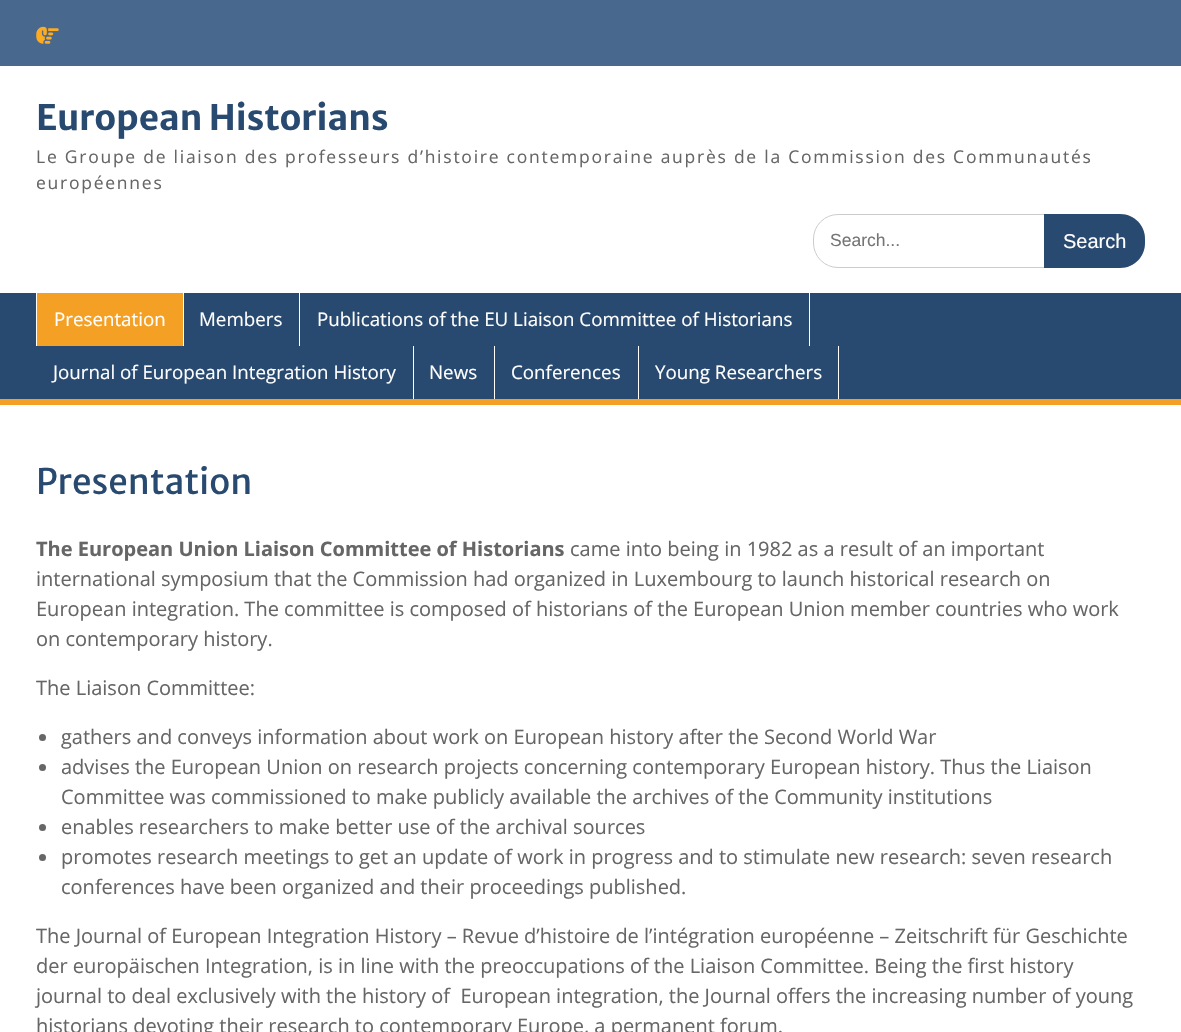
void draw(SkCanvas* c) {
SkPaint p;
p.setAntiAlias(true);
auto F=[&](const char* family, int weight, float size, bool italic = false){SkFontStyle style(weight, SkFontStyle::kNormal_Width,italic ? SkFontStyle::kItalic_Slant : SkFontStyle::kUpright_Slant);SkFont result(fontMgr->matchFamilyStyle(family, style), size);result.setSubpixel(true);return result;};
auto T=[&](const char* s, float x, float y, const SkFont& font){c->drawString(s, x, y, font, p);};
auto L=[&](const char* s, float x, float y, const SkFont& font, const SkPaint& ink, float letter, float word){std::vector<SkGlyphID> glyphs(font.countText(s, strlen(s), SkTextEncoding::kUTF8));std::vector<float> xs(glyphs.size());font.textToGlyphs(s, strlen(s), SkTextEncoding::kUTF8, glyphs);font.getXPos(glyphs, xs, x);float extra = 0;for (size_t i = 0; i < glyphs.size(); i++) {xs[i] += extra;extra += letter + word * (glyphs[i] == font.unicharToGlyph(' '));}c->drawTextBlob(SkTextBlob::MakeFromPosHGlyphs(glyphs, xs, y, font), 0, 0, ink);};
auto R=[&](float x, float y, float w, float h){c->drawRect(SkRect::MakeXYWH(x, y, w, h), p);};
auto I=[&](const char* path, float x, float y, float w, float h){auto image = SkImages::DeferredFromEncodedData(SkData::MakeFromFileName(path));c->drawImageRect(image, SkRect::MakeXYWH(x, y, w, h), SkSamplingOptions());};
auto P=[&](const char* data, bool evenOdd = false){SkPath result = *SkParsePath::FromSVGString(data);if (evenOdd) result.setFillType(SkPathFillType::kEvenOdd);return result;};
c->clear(0xffffffff);
p.setColor(0xff49688e);
R(0,0,1181,66);
I("1.png",36,26,23,18);
auto f1 = F("Merriweather Sans",700,35);
p.setColor(0xff294a70);
T("European Historians",36,130,f1);
auto f2 = F("Open Sans",400,17.5);
p.setColor(0xff666666);
L("Le Groupe de liaison des professeurs d’histoire contemporaine auprès de la Commission des Communautés",36,163,f2,p,1.75,0);
L("européennes",36,189,f2,p,1.75,0);
p.setStroke(true);
p.setStrokeWidth(1);
p.setColor(0xffcccccc);
c->drawRoundRect(SkRect::MakeXYWH(813.5,214.5,331,53),24.5,24.5,p);
auto f3 = F("Liberation Sans",400,17.5);
p.setStroke(false);
p.setColor(0xff757575);
T("Search...",830,246,f3);
p.setColor(0xff294a70);
c->drawPath(P("M1044 214h76c14 0 25 11 25 25v4c0 14-11 25-25 25h-76z"),p);
auto f4 = F("Liberation Sans",400,20);
p.setColor(0xffffffff);
T("Search",1063,248,f4);
p.setColor(0xff294a70);
R(0,293,1181,106);
p.setColor(0xfff4a024);
R(0,399,1181,6);
R(37,293,146,53);
p.setColor(0xffffffff);
R(183,293,1,53);
R(36,293,1,53);
auto f5 = F("Open Sans",400,18.75);
T("Presentation",54,326,f5);
R(299,293,1,53);
T("Members",199,326,f5);
R(809,293,1,53);
T("Publications of the EU Liaison Committee of Historians",317,326,f5);
R(413,346,1,53);
T("Journal of European Integration History",53,379,f5);
R(494,346,1,53);
T("News",429,379,f5);
R(638,346,1,53);
T("Conferences",511,379,f5);
R(838,346,1,53);
T("Young Researchers",655,379,f5);
auto f6 = F("Merriweather Sans",400,35);
p.setColor(0xff294a70);
T("Presentation",36,494,f6);
auto f7 = F("Open Sans",700,20);
p.setColor(0xff666666);
T("The European Union Liaison Committee of Historians",36,556,f7);
auto f8 = F("Open Sans",400,20);
T("came into being in 1982 as a result of an important",570,556,f8);
T("international symposium that the Commission had organized in Luxembourg to launch historical research on",36,586,f8);
T("European integration. The committee is composed of historians of the European Union member countries who work",36,616,f8);
T("on contemporary history.",36,646,f8);
T("The Liaison Committee:",36,695,f8);
c->drawCircle(42.5,737.5,3.5,p);
T("gathers and conveys information about work on European history after the Second World War",61,744,f8);
c->drawCircle(42.5,767.5,3.5,p);
T("advises the European Union on research projects concerning contemporary European history. Thus the Liaison",61,774,f8);
T("Committee was commissioned to make publicly available the archives of the Community institutions",61,804,f8);
c->drawCircle(42.5,827.5,3.5,p);
T("enables researchers to make better use of the archival sources",61,834,f8);
c->drawCircle(42.5,857.5,3.5,p);
T("promotes research meetings to get an update of work in progress and to stimulate new research: seven research",61,864,f8);
T("conferences have been organized and their proceedings published.",61,894,f8);
T("The Journal of European Integration History – Revue d’histoire de l’intégration européenne – Zeitschrift für Geschichte",36,943,f8);
T("der europäischen Integration, is in line with the preoccupations of the Liaison Committee. Being the first history",36,973,f8);
T("journal to deal exclusively with the history of  European integration, the Journal offers the increasing number of young",36,1003,f8);
T("historians devoting their research to contemporary Europe, a permanent forum.",36,1033,f8);
}
